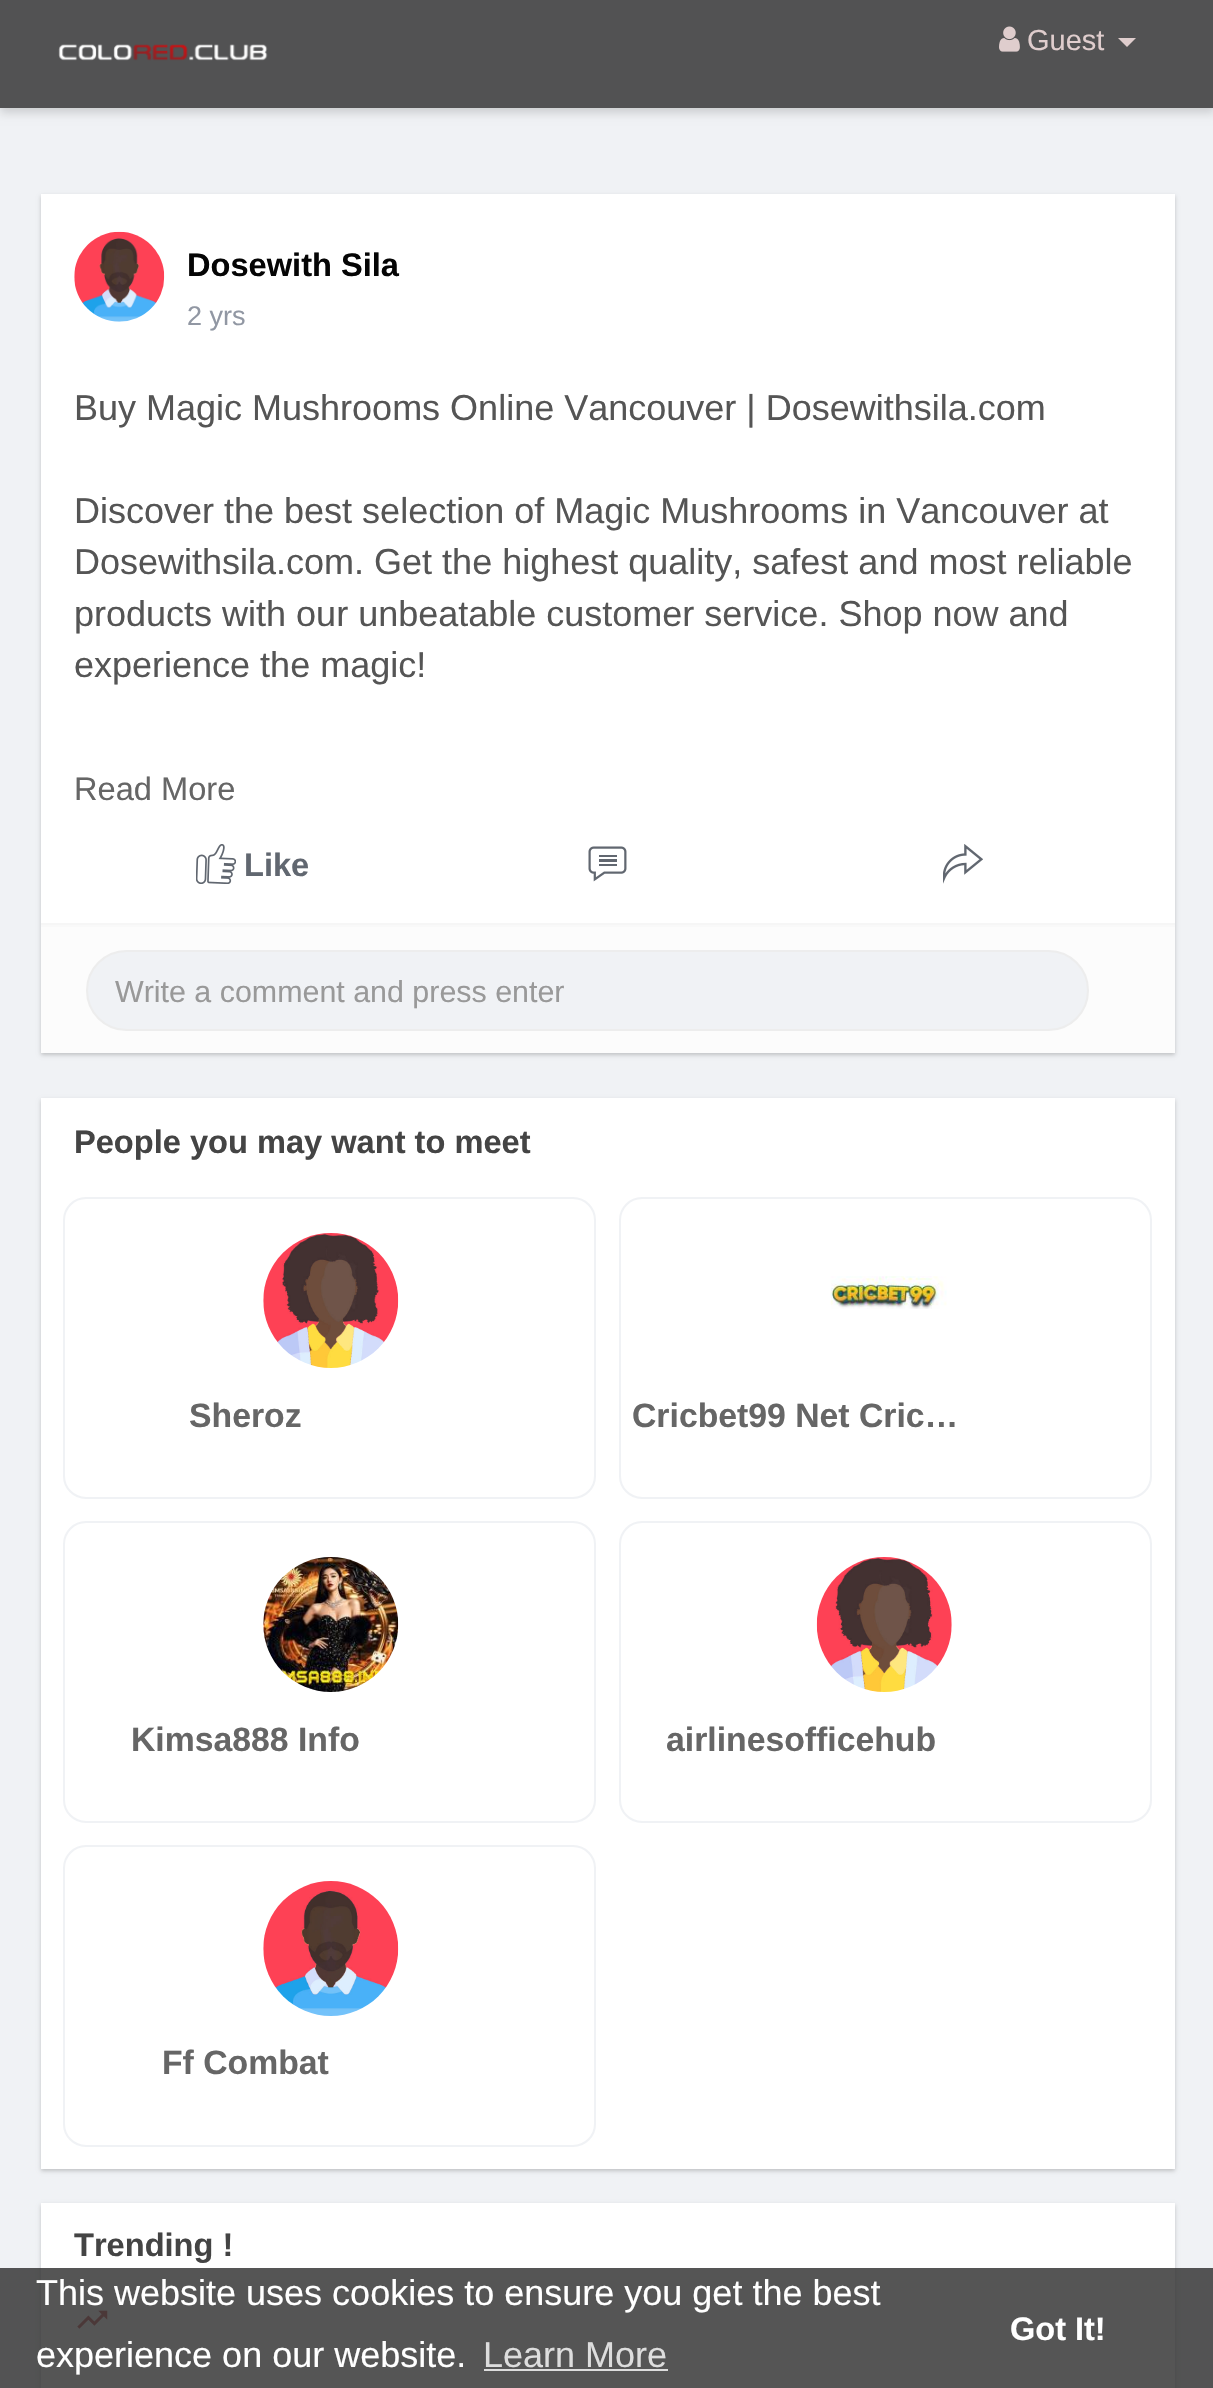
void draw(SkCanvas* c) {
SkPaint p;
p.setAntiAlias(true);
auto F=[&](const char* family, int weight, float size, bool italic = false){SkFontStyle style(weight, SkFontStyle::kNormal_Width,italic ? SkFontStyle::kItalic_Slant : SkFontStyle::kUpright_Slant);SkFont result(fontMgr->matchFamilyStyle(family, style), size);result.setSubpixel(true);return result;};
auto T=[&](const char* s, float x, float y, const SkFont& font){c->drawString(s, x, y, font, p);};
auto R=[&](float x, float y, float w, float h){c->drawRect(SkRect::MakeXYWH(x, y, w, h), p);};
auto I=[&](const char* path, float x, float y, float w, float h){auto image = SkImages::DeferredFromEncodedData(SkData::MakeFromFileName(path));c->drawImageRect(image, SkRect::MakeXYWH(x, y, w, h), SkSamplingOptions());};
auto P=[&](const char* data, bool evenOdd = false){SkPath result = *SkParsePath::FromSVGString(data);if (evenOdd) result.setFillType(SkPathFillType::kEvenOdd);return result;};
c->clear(0xfff0f2f5);
p.setColor(0x26000000);
p.setMaskFilter(SkMaskFilter::MakeBlur(kNormal_SkBlurStyle, 4.5));
c->drawRect(SkRect::MakeXYWH(0,5,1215,108),p);
p.setMaskFilter(nullptr);
p.setColor(0xff525253);
R(0,0,1213,108);
I("1.png",58,44,210,17);
I("2.png",999,26,21,26);
auto f1 = F("Liberation Sans",400,29);
p.setColor(0xffdfcdcd);
T("Guest",1027,50,f1);
c->drawPath(P("M1118 38h18l-9 9z"),p);
p.setColor(0x33000000);
p.setMaskFilter(SkMaskFilter::MakeBlur(kNormal_SkBlurStyle, 2));
c->drawRect(SkRect::MakeXYWH(41,196,1134,859),p);
p.setMaskFilter(nullptr);
p.setColor(0xffffffff);
R(41,194,1134,729);
I("3.png",74,231,91,91);
auto f2 = F("Liberation Sans",700,32.6);
p.setColor(0xff050505);
T("Dosewith Sila",187,276,f2);
auto f3 = F("Liberation Sans",400,27);
p.setColor(0xff9197a3);
T("2 yrs",187,325,f3);
auto f4 = F("Liberation Sans",400,36);
p.setColor(0xff555555);
T("Buy Magic Mushrooms Online Vancouver | Dosewithsila.com",74,420,f4);
T("Discover the best selection of Magic Mushrooms in Vancouver at",74,523,f4);
T("Dosewithsila.com. Get the highest quality, safest and most reliable",74,574,f4);
T("products with our unbeatable customer service. Shop now and",74,626,f4);
T("experience the magic!",74,677,f4);
auto f5 = F("Liberation Sans",400,32.6);
p.setColor(0xff666666);
T("Read More",74,800,f5);
I("4.png",196,844,40,40);
p.setColor(0xff616770);
T("Like",244,876,f2);
I("5.png",588,846,39,36);
I("6.png",943,844,40,40);
p.setColor(0xfffcfcfc);
R(41,927,1134,126);
p.setColor(0xfff6f6f6);
R(41,923,1134,2);
p.setColor(0xfff9f9f9);
R(41,925,1134,2);
p.setColor(0xfff0f2f5);
c->drawRoundRect(SkRect::MakeXYWH(87,951,1001,79),39.5,39.5,p);
p.setStroke(true);
p.setStrokeWidth(2);
p.setColor(0xffededed);
c->drawRoundRect(SkRect::MakeXYWH(87,951,1001,79),39.5,39.5,p);
auto f6 = F("Liberation Sans",400,30.4);
p.setStroke(false);
p.setColor(0xff999999);
T("Write a comment and press enter",115,1002,f6);
p.setColor(0x33000000);
p.setMaskFilter(SkMaskFilter::MakeBlur(kNormal_SkBlurStyle, 2));
c->drawRect(SkRect::MakeXYWH(41,1100,1134,1071),p);
p.setMaskFilter(nullptr);
p.setColor(0xffffffff);
R(41,1098,1134,1071);
p.setColor(0xff444444);
T("People you may want to meet",74,1153,f2);
p.setStroke(true);
p.setColor(0xfff0f2f5);
c->drawRoundRect(SkRect::MakeXYWH(64,1198,531,300),22,22,p);
I("7.png",263,1233,136,135);
auto f7 = F("Liberation Sans",700,33.75);
p.setStroke(false);
p.setColor(0xff666666);
T("Sheroz",189,1427,f7);
p.setStroke(true);
p.setColor(0xfff0f2f5);
c->drawRoundRect(SkRect::MakeXYWH(620,1198,531,300),22,22,p);
I("8.png",830,1276,117,33);
p.setStroke(false);
p.setColor(0xff666666);
T("Cricbet99 Net Cric…",632,1427,f7);
p.setStroke(true);
p.setColor(0xfff0f2f5);
c->drawRoundRect(SkRect::MakeXYWH(64,1522,531,300),22,22,p);
I("9.png",263,1557,136,135);
p.setStroke(false);
p.setColor(0xff666666);
T("Kimsa888 Info",131,1751,f7);
p.setStroke(true);
p.setColor(0xfff0f2f5);
c->drawRoundRect(SkRect::MakeXYWH(620,1522,531,300),22,22,p);
I("10.png",816,1557,136,135);
p.setStroke(false);
p.setColor(0xff666666);
T("airlinesofficehub",666,1751,f7);
p.setStroke(true);
p.setColor(0xfff0f2f5);
c->drawRoundRect(SkRect::MakeXYWH(64,1846,531,300),22,22,p);
I("11.png",263,1881,136,135);
p.setStroke(false);
p.setColor(0xff666666);
T("Ff Combat",162,2074,f7);
p.setColor(0x33000000);
p.setMaskFilter(SkMaskFilter::MakeBlur(kNormal_SkBlurStyle, 2));
c->drawRect(SkRect::MakeXYWH(41,2205,1134,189),p);
p.setMaskFilter(nullptr);
p.setColor(0xffffffff);
R(41,2203,1134,185);
p.setColor(0xff444444);
T("Trending !",74,2256,f2);
I("12.png",77,2310,31,19);
p.setColor(0xd12f2f2f);
R(0,2268,1213,120);
p.setColor(0xffffffff);
T("This website uses cookies to ensure you get the best",36,2305,f4);
T("experience on our website.",36,2367,f4);
p.setColor(0xffdddddd);
T("Learn More",483,2367,f4);
R(484,2369,184,2);
auto f8 = F("Liberation Sans",700,32.5);
p.setColor(0xffffffff);
T("Got It!",1010,2340,f8);
}
